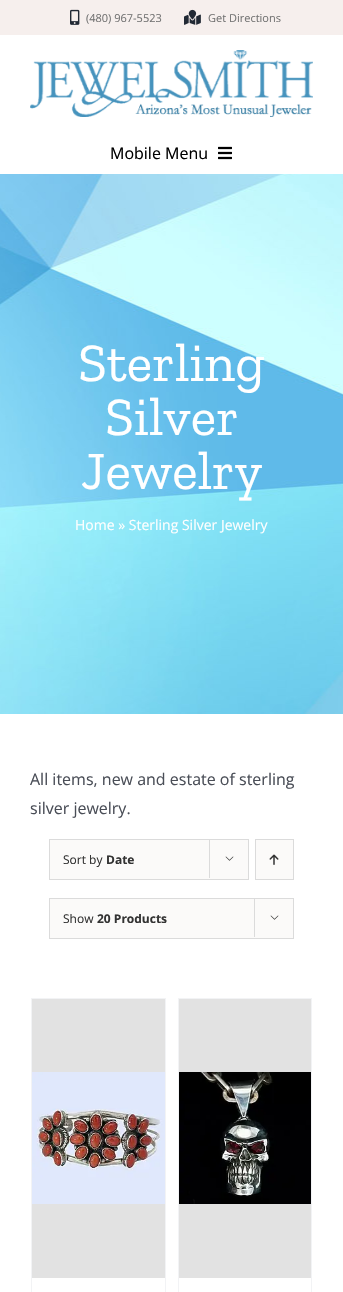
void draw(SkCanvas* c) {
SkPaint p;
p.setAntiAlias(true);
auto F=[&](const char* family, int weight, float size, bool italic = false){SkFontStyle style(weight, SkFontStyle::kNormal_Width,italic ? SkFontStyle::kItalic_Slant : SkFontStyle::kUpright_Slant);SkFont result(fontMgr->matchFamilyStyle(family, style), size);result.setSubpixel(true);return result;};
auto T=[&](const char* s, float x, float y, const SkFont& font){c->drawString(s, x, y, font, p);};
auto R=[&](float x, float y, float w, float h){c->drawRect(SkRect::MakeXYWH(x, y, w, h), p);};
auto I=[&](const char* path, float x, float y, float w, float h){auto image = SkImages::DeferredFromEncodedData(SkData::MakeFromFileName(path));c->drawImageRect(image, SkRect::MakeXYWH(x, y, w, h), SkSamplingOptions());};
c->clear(0xffffffff);
p.setColor(0xfff6efed);
R(0,0,343,35);
I("1.png",70,9,10,16);
auto f1 = F("Open Sans",400,11);
p.setColor(0xff737373);
T("(480) 967-5523",86,22,f1);
I("2.png",184,9,17,16);
T("Get Directions",208,22,f1);
I("3.png",30,50,283,67);
auto f2 = F("Open Sans",400,16);
p.setColor(0xff000000);
T("Mobile Menu",110,159,f2);
I("4.png",218,146,14,14);
I("5.png",0,174,343,540);
auto f3 = F("Zilla Slab",400,54);
p.setColor(0xffffffff);
T("Sterling",78,381,f3);
T("Silver",105,435,f3);
T("Jewelry",81,489,f3);
auto f4 = F("Open Sans",400,14);
T("Home » Sterling Silver Jewelry",75,530,f4);
p.setColor(0xff4a4e57);
T("All items, new and estate of sterling",30,785,f2);
T("silver jewelry.",30,814,f2);
p.setColor(0xfffbfaf9);
c->drawRect(SkRect::MakeXYWH(49.5,839.5,199,40),p);
p.setStroke(true);
p.setStrokeWidth(1);
p.setColor(0xffdbdbdb);
c->drawRect(SkRect::MakeXYWH(49.5,839.5,199,40),p);
auto f5 = F("Open Sans",400,12);
p.setStroke(false);
p.setColor(0xff333333);
T("Sort by",63,864,f5);
auto f6 = F("Open Sans",700,12);
T("Date",106,864,f6);
p.setColor(0xffdbdbdb);
R(209,839,1,39);
I("6.png",225,856,9,5);
p.setColor(0xfffbfaf9);
c->drawRect(SkRect::MakeXYWH(255.5,839.5,38,40),p);
p.setStroke(true);
p.setColor(0xffdbdbdb);
c->drawRect(SkRect::MakeXYWH(255.5,839.5,38,40),p);
I("7.png",269,854,10,11);
p.setStroke(false);
p.setColor(0xfffbfaf9);
c->drawRect(SkRect::MakeXYWH(49.5,898.5,244,40),p);
p.setStroke(true);
p.setColor(0xffdbdbdb);
c->drawRect(SkRect::MakeXYWH(49.5,898.5,244,40),p);
p.setStroke(false);
p.setColor(0xff333333);
T("Show",63,923,f5);
T("20 Products",97,923,f6);
p.setColor(0xffdbdbdb);
R(254,898,1,39);
I("6.png",270,915,9,5);
p.setColor(0xfff2f3f5);
R(31,998,135,1);
R(165,998,1,294);
R(31,998,1,294);
p.setColor(0xffe2e2e2);
R(32,999,133,279);
I("8.png",32,1072,133,132);
p.setColor(0xfff2f3f5);
R(178,998,134,1);
R(311,998,1,294);
R(178,998,1,294);
p.setColor(0xffe2e2e2);
R(179,999,132,279);
I("9.png",179,1072,132,132);
}
